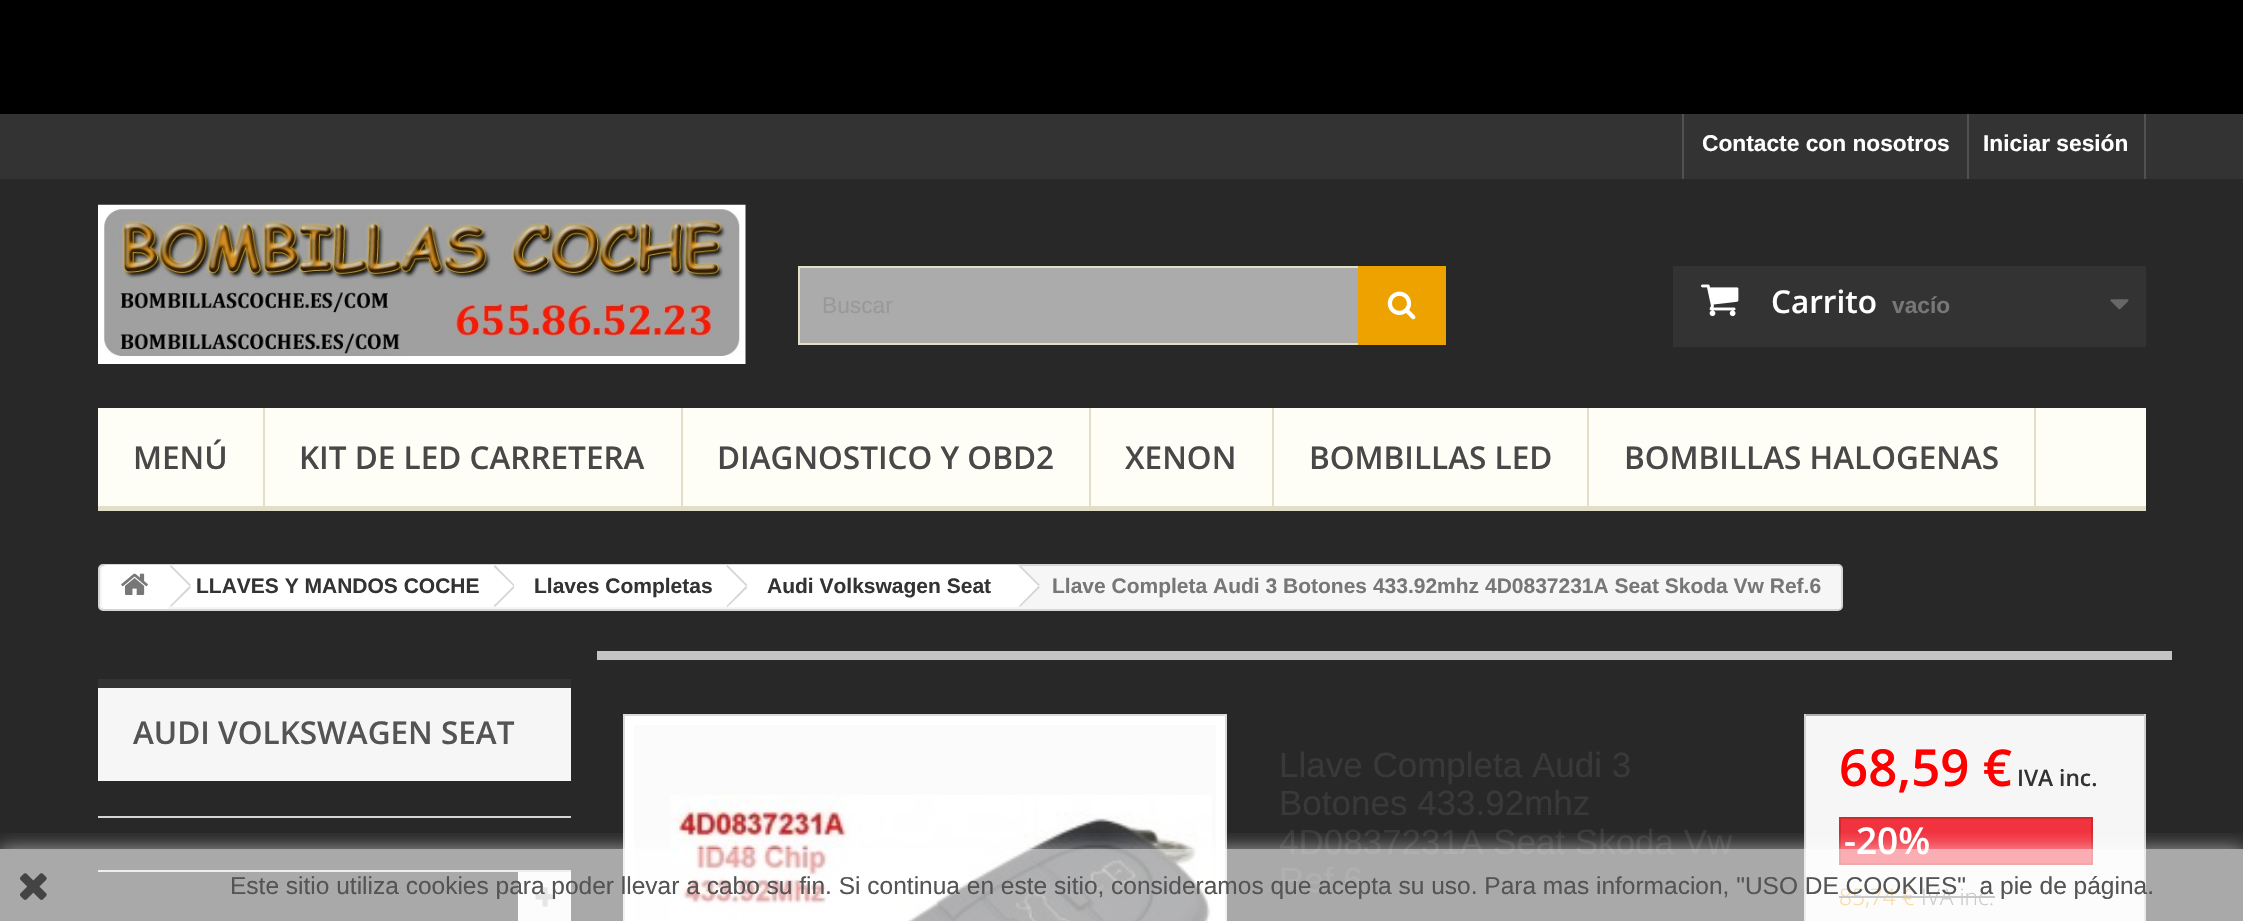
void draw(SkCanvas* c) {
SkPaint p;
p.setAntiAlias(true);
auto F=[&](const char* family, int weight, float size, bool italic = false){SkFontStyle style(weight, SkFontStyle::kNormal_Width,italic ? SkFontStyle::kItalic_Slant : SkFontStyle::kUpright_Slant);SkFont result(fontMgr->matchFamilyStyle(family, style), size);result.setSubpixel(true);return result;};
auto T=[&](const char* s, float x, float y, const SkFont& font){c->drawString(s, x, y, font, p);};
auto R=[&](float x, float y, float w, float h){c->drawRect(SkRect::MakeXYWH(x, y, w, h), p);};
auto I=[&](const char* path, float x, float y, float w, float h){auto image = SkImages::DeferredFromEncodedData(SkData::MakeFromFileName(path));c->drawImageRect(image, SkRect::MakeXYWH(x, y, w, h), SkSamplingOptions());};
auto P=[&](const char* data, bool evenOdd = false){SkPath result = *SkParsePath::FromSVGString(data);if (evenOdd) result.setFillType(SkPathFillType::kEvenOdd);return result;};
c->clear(0xff282828);
p.setColor(0xff000000);
R(0,0,2243,114);
p.setColor(0xff333333);
R(0,114,2243,65);
p.setColor(0xff515151);
R(1682,114,2,65);
auto f1 = F("Liberation Sans",700,22.75);
p.setColor(0xffffffff);
T("Contacte con nosotros",1702,151,f1);
p.setColor(0xff515151);
R(2144,114,2,65);
R(1967,114,2,65);
p.setColor(0xffffffff);
T("Iniciar sesión",1983,151,f1);
I("1.png",98,204,648,160);
p.setColor(0xffababab);
R(800,268,558,75);
p.setStroke(true);
p.setStrokeWidth(2);
p.setColor(0xffe2dec8);
c->drawRect(SkRect::MakeXYWH(799,267,646,77),p);
auto f2 = F("Liberation Sans",400,22.75);
p.setStroke(false);
p.setColor(0xff999999);
T("Buscar",822,313,f2);
p.setColor(0xffeea200);
R(1358,266,88,79);
I("2.png",1387,291,29,29);
p.setColor(0xff333333);
R(1673,266,473,81);
I("3.png",1701,284,38,33);
auto f3 = F("Open Sans",600,31.5);
p.setColor(0xffffffff);
T("Carrito",1771,313,f3);
p.setColor(0xff777777);
T("vacío",1892,313,f1);
I("4.png",2110,299,19,11);
p.setColor(0xfffffef6);
R(98,408,2048,98);
p.setColor(0xffe2dec8);
R(98,506,2048,5);
R(263,408,2,103);
p.setColor(0xff484848);
T("MENÚ",133,469,f3);
p.setColor(0xffe2dec8);
R(681,408,2,103);
p.setColor(0xff484848);
T("KIT DE LED CARRETERA",299,469,f3);
p.setColor(0xffe2dec8);
R(1089,408,2,103);
p.setColor(0xff484848);
T("DIAGNOSTICO Y OBD2",717,469,f3);
p.setColor(0xffe2dec8);
R(1272,408,2,103);
p.setColor(0xff484848);
T("XENON",1125,469,f3);
p.setColor(0xffe2dec8);
R(1587,408,2,103);
p.setColor(0xff484848);
T("BOMBILLAS LED",1309,469,f3);
p.setColor(0xffe2dec8);
R(2034,408,2,103);
p.setColor(0xff484848);
T("BOMBILLAS HALOGENAS",1624,469,f3);
p.setColor(0xfff6f6f6);
c->drawRoundRect(SkRect::MakeXYWH(99,565,1743,45),4,4,p);
p.setStroke(true);
p.setColor(0xffd6d4d4);
c->drawRoundRect(SkRect::MakeXYWH(99,565,1743,45),4,4,p);
p.setStroke(false);
p.setColor(0xffffffff);
c->drawPath(P("M107 565h61v44h-61c-3 0-5-2-5-5v-34c0-3 2-5 5-5z"),p);
I("5.png",121,573,27,22);
R(168,565,327,42);
p.setColor(0xffd6d4d4);
c->drawPath(P("M171 565l20 20l-1.5 1l-19.5-19.5zm18.5 21l1.5 1.5l-20 19.5l-1-1z"),p);
auto f4 = F("Liberation Sans",700,21);
p.setColor(0xff333333);
T("LLAVES Y MANDOS COCHE",196,593,f4);
p.setColor(0xffffffff);
c->drawPath(P("M510 566l17 18c2 1 2 3 0 5l-17 17c-1 1-4 1-5 0l-17-17c-2-2-2-4 0-5l17-18c1-1 4-1 5 0z"),p);
R(495,565,233,42);
p.setColor(0xffd6d4d4);
c->drawPath(P("M495 565l19.5 20l-1 1l-20-19.5zm18.5 21l1 1.5l-19.5 19.5l-1.5-1z"),p);
p.setColor(0xff333333);
T("Llaves Completas",534,593,f4);
p.setColor(0xffffffff);
c->drawPath(P("M743 566l17 18c2 1 2 3 0 5l-17 17c-1 1-4 1-5 0l-17-17c-2-2-2-4 0-5l17-18c1-1 4-1 5 0z"),p);
R(728,565,289,42);
p.setColor(0xffd6d4d4);
c->drawPath(P("M727.5 565l20 20l-1.5 1l-19.5-19.5zm18.5 21l1.5 1.5l-20 19.5l-1-1z"),p);
p.setColor(0xff333333);
T("Audi Volkswagen Seat",767,593,f4);
p.setColor(0xffffffff);
c->drawPath(P("M1021 566l18 18c1 1 1 3 0 5l-18 17c-1 1-3 1-5 0l-17-17c-1-2-1-4 0-5l17-18c2-1 4-1 5 0z"),p);
p.setColor(0xffd6d4d4);
c->drawPath(P("M1020 565l20 20l-1.5 1l-19.5-19.5zm18.5 21l1.5 1.5l-20 19.5l-1-1z"),p);
p.setColor(0xff777777);
T("Llave Completa Audi 3 Botones 433.92mhz 4D0837231A Seat Skoda Vw Ref.6",1052,593,f4);
p.setColor(0xfff6f6f6);
R(98,688,473,93);
p.setColor(0xff333333);
R(98,679,473,9);
p.setColor(0xff555454);
T("AUDI VOLKSWAGEN SEAT",133,744,f3);
p.setColor(0xffd6d4d4);
R(98,816,473,2);
R(98,870,473,2);
p.setColor(0xfff6f6f6);
R(518,872,53,49);
I("6.png",535,887,20,20);
p.setColor(0xffc4c4c4);
R(597,651,1575,9);
p.setColor(0xffffffff);
c->drawRect(SkRect::MakeXYWH(624,715,602,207),p);
p.setStroke(true);
p.setColor(0xffdbdbdb);
c->drawRect(SkRect::MakeXYWH(624,715,602,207),p);
p.setStroke(false);
p.setColor(0xfffbfbfb);
R(634,725,582,196);
I("7.png",670,795,542,126);
auto f5 = F("Liberation Sans",400,35);
p.setColor(0xff3a3939);
T("Llave Completa Audi 3",1279,777,f5);
T("Botones 433.92mhz",1279,815,f5);
T("4D0837231A Seat Skoda Vw",1279,854,f5);
T("Ref.6",1279,892,f5);
p.setColor(0xfff6f6f6);
R(1806,716,338,205);
p.setColor(0xffb0afaf);
R(1804,714,342,2);
p.setColor(0xffd2d0d0);
R(2144,714,2,207);
R(1804,714,2,207);
auto f6 = F("Open Sans",600,51);
p.setColor(0xffff0000);
T("68,59 €",1839,786,f6);
auto f7 = F("Open Sans",600,22.75);
p.setColor(0xff333333);
T("IVA inc.",2017,786,f7);
p.setColor(0xfff13340);
c->drawRect(SkRect::MakeXYWH(1840,818,252,46),p);
p.setStroke(true);
p.setColor(0xffd02a2c);
c->drawRect(SkRect::MakeXYWH(1840,818,252,46),p);
auto f8 = F("Open Sans",600,37);
p.setStroke(false);
p.setColor(0xffffffff);
T("-20%",1844,854,f8);
auto f9 = F("Open Sans",300,22.75);
p.setColor(0xffeea200);
T("85,74 €",1839,905,f9);
p.setColor(0xff777777);
R(1839,896,76,2);
T("IVA inc.",1921,905,f9);
R(1915,896,80,2);
c->save();
c->clipRect(SkRect::MakeXYWH(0,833,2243,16));
p.setColor(0x99ffffff);
p.setMaskFilter(SkMaskFilter::MakeBlur(kNormal_SkBlurStyle, 9));
c->drawRect(SkRect::MakeXYWH(0,849,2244,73),p);
p.setMaskFilter(nullptr);
c->restore();
R(0,849,2243,72);
I("8.png",20,873,27,27);
auto f10 = F("Liberation Sans",400,24.5);
p.setColor(0xff555454);
T("Este sitio utiliza cookies para poder llevar a cabo su fin. Si continua en este sitio, consideramos que acepta su uso. Para mas informacion, \"USO DE COOKIES\"  a pie de página.",230,894,f10);
}
